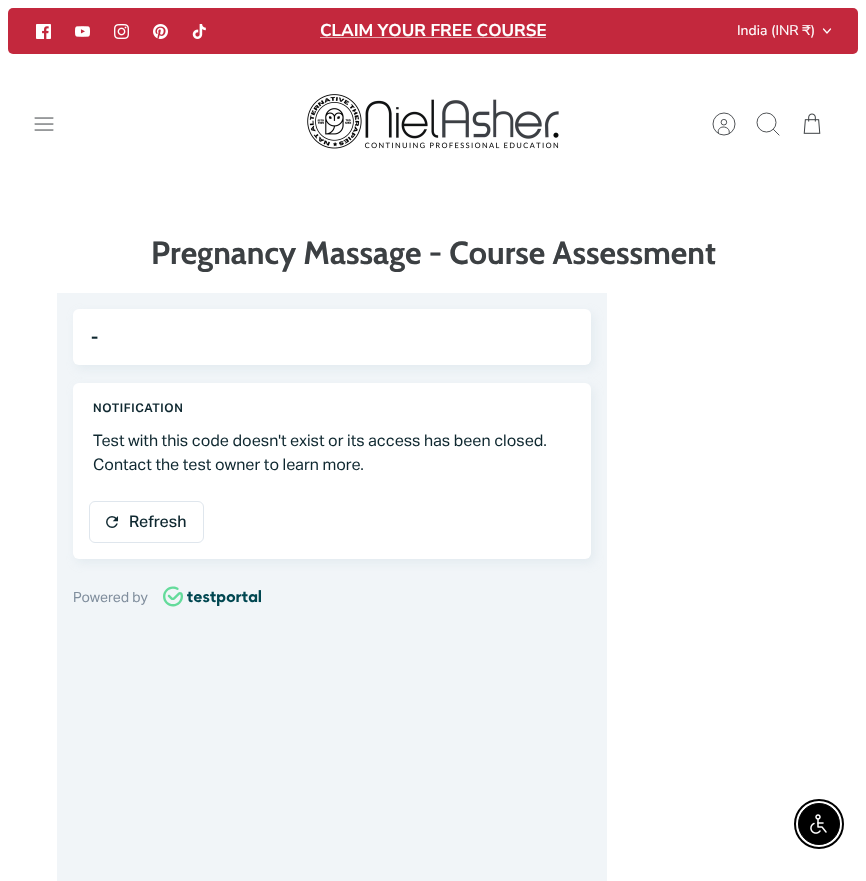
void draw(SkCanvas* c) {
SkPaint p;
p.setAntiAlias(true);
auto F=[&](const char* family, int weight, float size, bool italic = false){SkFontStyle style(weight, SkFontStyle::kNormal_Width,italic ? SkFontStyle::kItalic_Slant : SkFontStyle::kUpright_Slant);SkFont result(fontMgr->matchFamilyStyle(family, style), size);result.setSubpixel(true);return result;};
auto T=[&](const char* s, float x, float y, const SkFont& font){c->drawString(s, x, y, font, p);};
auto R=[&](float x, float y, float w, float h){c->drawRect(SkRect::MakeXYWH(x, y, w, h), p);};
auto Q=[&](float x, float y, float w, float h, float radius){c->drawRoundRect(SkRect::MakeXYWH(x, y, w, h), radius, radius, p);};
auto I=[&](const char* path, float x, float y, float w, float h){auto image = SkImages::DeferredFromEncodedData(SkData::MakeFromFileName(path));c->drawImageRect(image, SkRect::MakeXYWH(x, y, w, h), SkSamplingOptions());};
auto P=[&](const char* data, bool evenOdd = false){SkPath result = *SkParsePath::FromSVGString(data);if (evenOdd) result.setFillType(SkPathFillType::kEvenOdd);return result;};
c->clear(0xffffffff);
p.setColor(0xffc3283d);
Q(8,8,850,46,5);
I("1.png",36,24,15,15);
I("2.png",75,26,15,11);
I("3.png",114,24,15,15);
I("4.png",153,24,15,15);
I("5.png",192,24,14,15);
auto f1 = F("Nunito Sans",700,17);
p.setColor(0xffffffff);
T("CLAIM YOUR FREE COURSE",320,36,f1);
p.setColor(0xffe7a9b1);
R(320,37,226,1);
auto f2 = F("Nunito Sans",400,14);
p.setColor(0xffffffff);
T("India (INR ₹)",737,35,f2);
p.setStroke(true);
p.setStrokeWidth(1.2);
p.setStrokeCap(SkPaint::kRound_Cap);
p.setStrokeJoin(SkPaint::kRound_Join);
c->drawPath(P("M823.5 29l3.5 4l3.5-4"),p);
I("6.png",34,117,20,14);
I("7.png",307,94,252,55);
p.setStrokeWidth(.9);
p.setStrokeCap(SkPaint::kButt_Cap);
p.setStrokeJoin(SkPaint::kMiter_Join);
p.setColor(0xff3c4043);
c->drawPath(P("M729 134c2.5-9-13-9.5-10.5-.5"),p);
c->drawCircle(723.9,122.2,2.8,p);
c->drawCircle(724,124,11,p);
c->drawCircle(766.5,122.5,9.5,p);
p.setStrokeCap(SkPaint::kSquare_Cap);
c->drawPath(P("M773.5 129.5l5.5 5.5"),p);
I("8.png",803,113,18,21);
auto f3 = F("Cabin",700,32);
p.setStroke(false);
T("Pregnancy Massage - Course Assessment",151,264,f3);
I("9.png",57,293,550,588);
p.setStroke(true);
p.setStrokeWidth(2);
p.setStrokeCap(SkPaint::kButt_Cap);
p.setColor(0xff000000);
c->drawCircle(819,824,24,p);
p.setStroke(false);
c->drawCircle(819,824,20.5,p);
p.setStroke(true);
p.setStrokeWidth(1);
c->drawCircle(819,824,20.5,p);
I("10.png",810,814,17,20);
}
